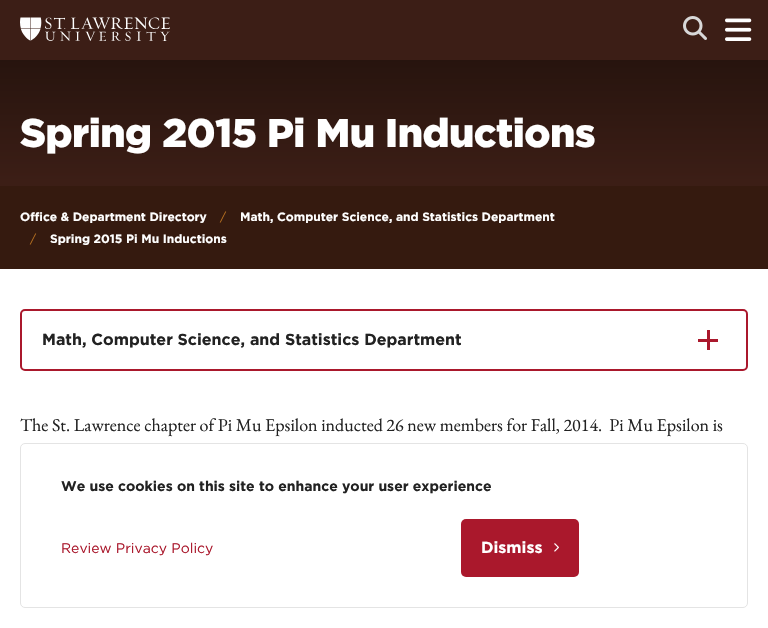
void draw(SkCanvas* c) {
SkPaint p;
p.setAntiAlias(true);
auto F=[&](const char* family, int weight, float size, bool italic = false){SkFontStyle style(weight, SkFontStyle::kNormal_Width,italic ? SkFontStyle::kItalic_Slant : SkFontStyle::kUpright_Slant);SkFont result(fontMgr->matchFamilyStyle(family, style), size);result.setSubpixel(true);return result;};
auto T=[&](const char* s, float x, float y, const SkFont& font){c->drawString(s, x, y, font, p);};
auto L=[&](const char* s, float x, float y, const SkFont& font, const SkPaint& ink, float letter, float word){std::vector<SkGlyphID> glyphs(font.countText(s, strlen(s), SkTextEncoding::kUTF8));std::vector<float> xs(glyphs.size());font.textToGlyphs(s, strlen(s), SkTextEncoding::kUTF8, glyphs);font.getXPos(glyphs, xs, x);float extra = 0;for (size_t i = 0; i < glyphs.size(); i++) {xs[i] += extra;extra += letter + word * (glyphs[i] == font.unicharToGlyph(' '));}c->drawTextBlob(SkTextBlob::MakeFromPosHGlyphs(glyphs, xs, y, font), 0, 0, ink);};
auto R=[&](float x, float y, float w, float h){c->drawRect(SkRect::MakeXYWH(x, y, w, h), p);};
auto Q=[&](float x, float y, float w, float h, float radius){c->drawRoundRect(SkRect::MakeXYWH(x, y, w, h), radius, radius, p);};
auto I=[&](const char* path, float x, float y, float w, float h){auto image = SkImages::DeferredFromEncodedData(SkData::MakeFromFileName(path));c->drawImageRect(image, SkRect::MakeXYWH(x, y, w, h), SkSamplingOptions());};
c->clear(0xffffffff);
p.setColor(0xff3c1e16);
R(0,0,768,60);
I("1.png",20,17,150,24);
I("2.png",683,16,24,24);
I("3.png",725,18,27,23);
{
const SkColor colors[] = {0xff1d0f0a,0xff3c1e16};
const float stops[] = {0,.98};
const SkPoint ends[] = {{384,0}, {384,186}};
p.setShader(SkGradientShader::MakeLinear(ends, colors, stops, 2, SkTileMode::kClamp));
p.setAlpha(255);
}
R(0,60,768,126);
auto f1 = F("Gotham",900,40);
p.setShader(nullptr);
p.setColor(0xffffffff);
L("Spring 2015 Pi Mu Inductions",20,147,f1,p,-.5,0);
p.setColor(0xff351a0f);
R(0,186,768,83);
auto f2 = F("Gotham",700,12);
p.setColor(0xffffffff);
T("Office & Department Directory",20,221,f2);
auto f3 = F("Gotham",400,12);
p.setColor(0xffb8701f);
T("/",220,221,f3);
p.setColor(0xffffffff);
T("Math, Computer Science, and Statistics Department",240,221,f2);
p.setColor(0xffb8701f);
T("/",30,243,f3);
p.setColor(0xffffffff);
T("Spring 2015 Pi Mu Inductions",50,243,f2);
p.setStroke(true);
p.setStrokeWidth(2);
p.setColor(0xffaa182c);
c->drawRoundRect(SkRect::MakeXYWH(21,310,726,60),4,4,p);
auto f4 = F("Gotham",700,16);
p.setStroke(false);
p.setColor(0xff222222);
T("Math, Computer Science, and Statistics Department",42,345,f4);
p.setColor(0xffaa182c);
R(707,330,3,20);
R(698,339,20,3);
auto f5 = F("EB Garamond",400,18);
p.setColor(0xff222222);
T("The St. Lawrence chapter of Pi Mu Epsilon inducted 26 new members for Fall, 2014.  Pi Mu Epsilon is",20,431,f5);
p.setStroke(true);
p.setStrokeWidth(1);
p.setColor(0xffe4e4e4);
c->drawRoundRect(SkRect::MakeXYWH(20.5,443.5,727,164),4.5,4.5,p);
auto f6 = F("Gotham",700,14);
p.setStroke(false);
p.setColor(0xff222222);
T("We use cookies on this site to enhance your user experience",61,491,f6);
auto f7 = F("Gotham",400,14);
p.setColor(0xffaa182c);
T("Review Privacy Policy",61,553,f7);
Q(461,519,118,58,5);
p.setColor(0xffffffff);
T("Dismiss",481,553,f4);
I("4.png",554,543,5,9);
}
